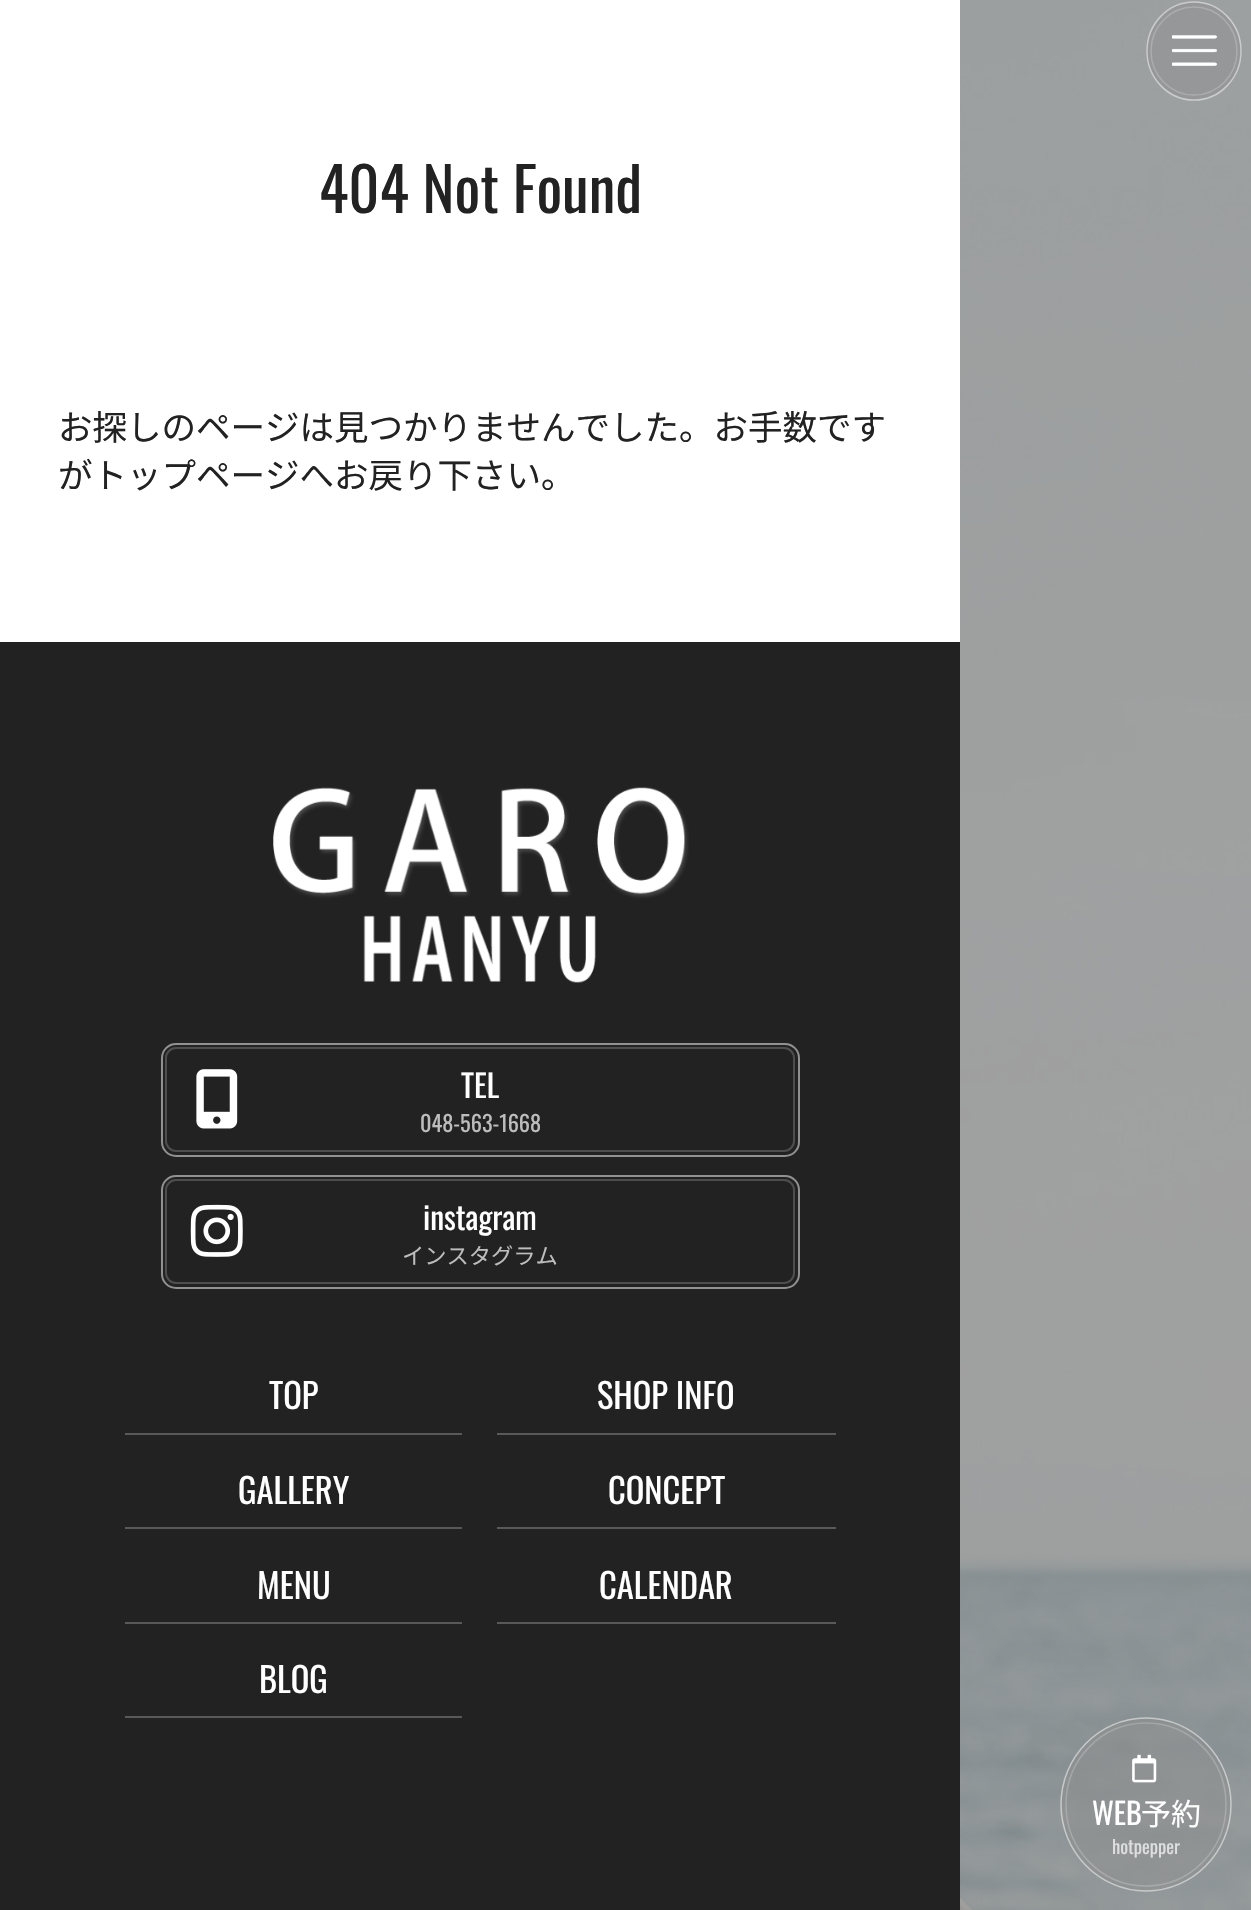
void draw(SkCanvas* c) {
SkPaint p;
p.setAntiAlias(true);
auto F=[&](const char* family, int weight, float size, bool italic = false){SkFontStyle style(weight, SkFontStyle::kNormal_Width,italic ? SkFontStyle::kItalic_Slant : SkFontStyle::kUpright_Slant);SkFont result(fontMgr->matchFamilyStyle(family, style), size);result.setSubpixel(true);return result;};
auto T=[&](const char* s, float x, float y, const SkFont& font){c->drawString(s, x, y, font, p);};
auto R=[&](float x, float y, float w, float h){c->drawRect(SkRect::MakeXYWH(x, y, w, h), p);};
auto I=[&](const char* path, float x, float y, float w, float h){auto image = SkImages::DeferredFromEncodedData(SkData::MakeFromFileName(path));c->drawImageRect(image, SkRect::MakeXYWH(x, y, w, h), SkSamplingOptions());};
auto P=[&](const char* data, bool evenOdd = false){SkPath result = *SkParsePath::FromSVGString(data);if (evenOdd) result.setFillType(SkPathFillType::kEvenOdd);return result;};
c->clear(0xffffffff);
I("1.png",960,0,291,1910);
p.setColor(0xff959798);
c->drawOval(SkRect::MakeXYWH(1146,1.5,96,99),p);
p.setStroke(true);
p.setStrokeWidth(1.5);
p.setColor(0x80ffffff);
c->drawPath(P("M1194 2c26 0 47 22 47 49c0 27-21 49-47 49c-26 0-47-22-47-49c0-27 21-49 47-49z"),p);
p.setColor(0xffaaacad);
c->drawPath(P("M1194 7c23.5 0 43 19.5 43 44c0 24.5-19.5 44-43 44c-23.5 0-43-19.5-43-44c0-24.5 19.5-44 43-44z"),p);
I("2.png",1172,35,45,31);
auto f1 = F("Oswald",400,60.5);
p.setStroke(false);
p.setColor(0xff222222);
T("404 Not Found",319,213,f1);
auto f2 = F("Noto Sans JP",100,34.5);
T("お探しのページは見つかりませんでした。お手数です",58,440,f2);
T("がトップページへお戻り下さい。",58,488,f2);
R(0,642,960,1268);
I("3.png",273,787,416,196);
p.setStroke(true);
p.setStrokeWidth(2);
p.setColor(0xff919191);
c->drawRoundRect(SkRect::MakeXYWH(162,1044,637,112),14,14,p);
p.setColor(0xff4e4e4e);
c->drawRoundRect(SkRect::MakeXYWH(166,1048,628,103),10,10,p);
I("4.png",196,1069,42,60);
auto f3 = F("Oswald",400,31.5);
p.setStroke(false);
p.setColor(0xffffffff);
T("TEL",461,1098,f3);
auto f4 = F("Oswald",400,22.25);
p.setColor(0xffbdbdbd);
T("048-563-1668",420,1132,f4);
p.setStroke(true);
p.setColor(0xff919191);
c->drawRoundRect(SkRect::MakeXYWH(162,1176,637,112),14,14,p);
p.setColor(0xff4e4e4e);
c->drawRoundRect(SkRect::MakeXYWH(166,1180,628,103),10,10,p);
I("5.png",190,1204,53,53);
p.setStroke(false);
p.setColor(0xffffffff);
T("instagram",423,1230,f3);
auto f5 = F("Noto Sans JP",100,22.25);
p.setColor(0xffbdbdbd);
T("インスタグラム",402,1264,f5);
p.setColor(0xff595959);
R(125,1433,337,2);
auto f6 = F("Oswald",400,34.5);
p.setColor(0xffffffff);
T("TOP",269,1409,f6);
p.setColor(0xff595959);
R(497,1433,339,2);
p.setColor(0xffffffff);
T("SHOP INFO",597,1409,f6);
p.setColor(0xff595959);
R(125,1527,337,2);
p.setColor(0xffffffff);
T("GALLERY",238,1504,f6);
p.setColor(0xff595959);
R(497,1527,339,2);
p.setColor(0xffffffff);
T("CONCEPT",608,1504,f6);
p.setColor(0xff595959);
R(125,1622,337,2);
p.setColor(0xffffffff);
T("MENU",257,1599,f6);
p.setColor(0xff595959);
R(497,1622,339,2);
p.setColor(0xffffffff);
T("CALENDAR",599,1599,f6);
p.setColor(0xff595959);
R(125,1716,337,2);
p.setColor(0xffffffff);
T("BLOG",259,1693,f6);
p.setColor(0x808f8f8f);
c->drawOval(SkRect::MakeXYWH(1060.5,1717.5,171,174),p);
p.setStroke(true);
p.setStrokeWidth(1.5);
p.setColor(0x80ffffff);
c->drawPath(P("M1146 1718c47 0 85 39 85 86.5c0 47.5-38 86.5-85 86.5c-47 0-85-39-85-86.5c0-47.5 38-86.5 85-86.5z"),p);
p.setColor(0x33ffffff);
c->drawPath(P("M1146 1723c44.5 0 80 36.5 80 81.5c0 45-35.5 81.5-80 81.5c-44.5 0-80-36.5-80-81.5c0-45 35.5-81.5 80-81.5z"),p);
I("6.png",1132,1754,25,29);
auto f7 = F("Oswald",400,30);
p.setStroke(false);
p.setColor(0xffffffff);
T("WEB",1092,1825,f7);
auto f8 = F("Noto Sans JP",100,30);
T("予約",1141,1825,f8);
auto f9 = F("Oswald",400,18.5);
p.setColor(0xffdddedf);
T("hotpepper",1112,1854,f9);
}
